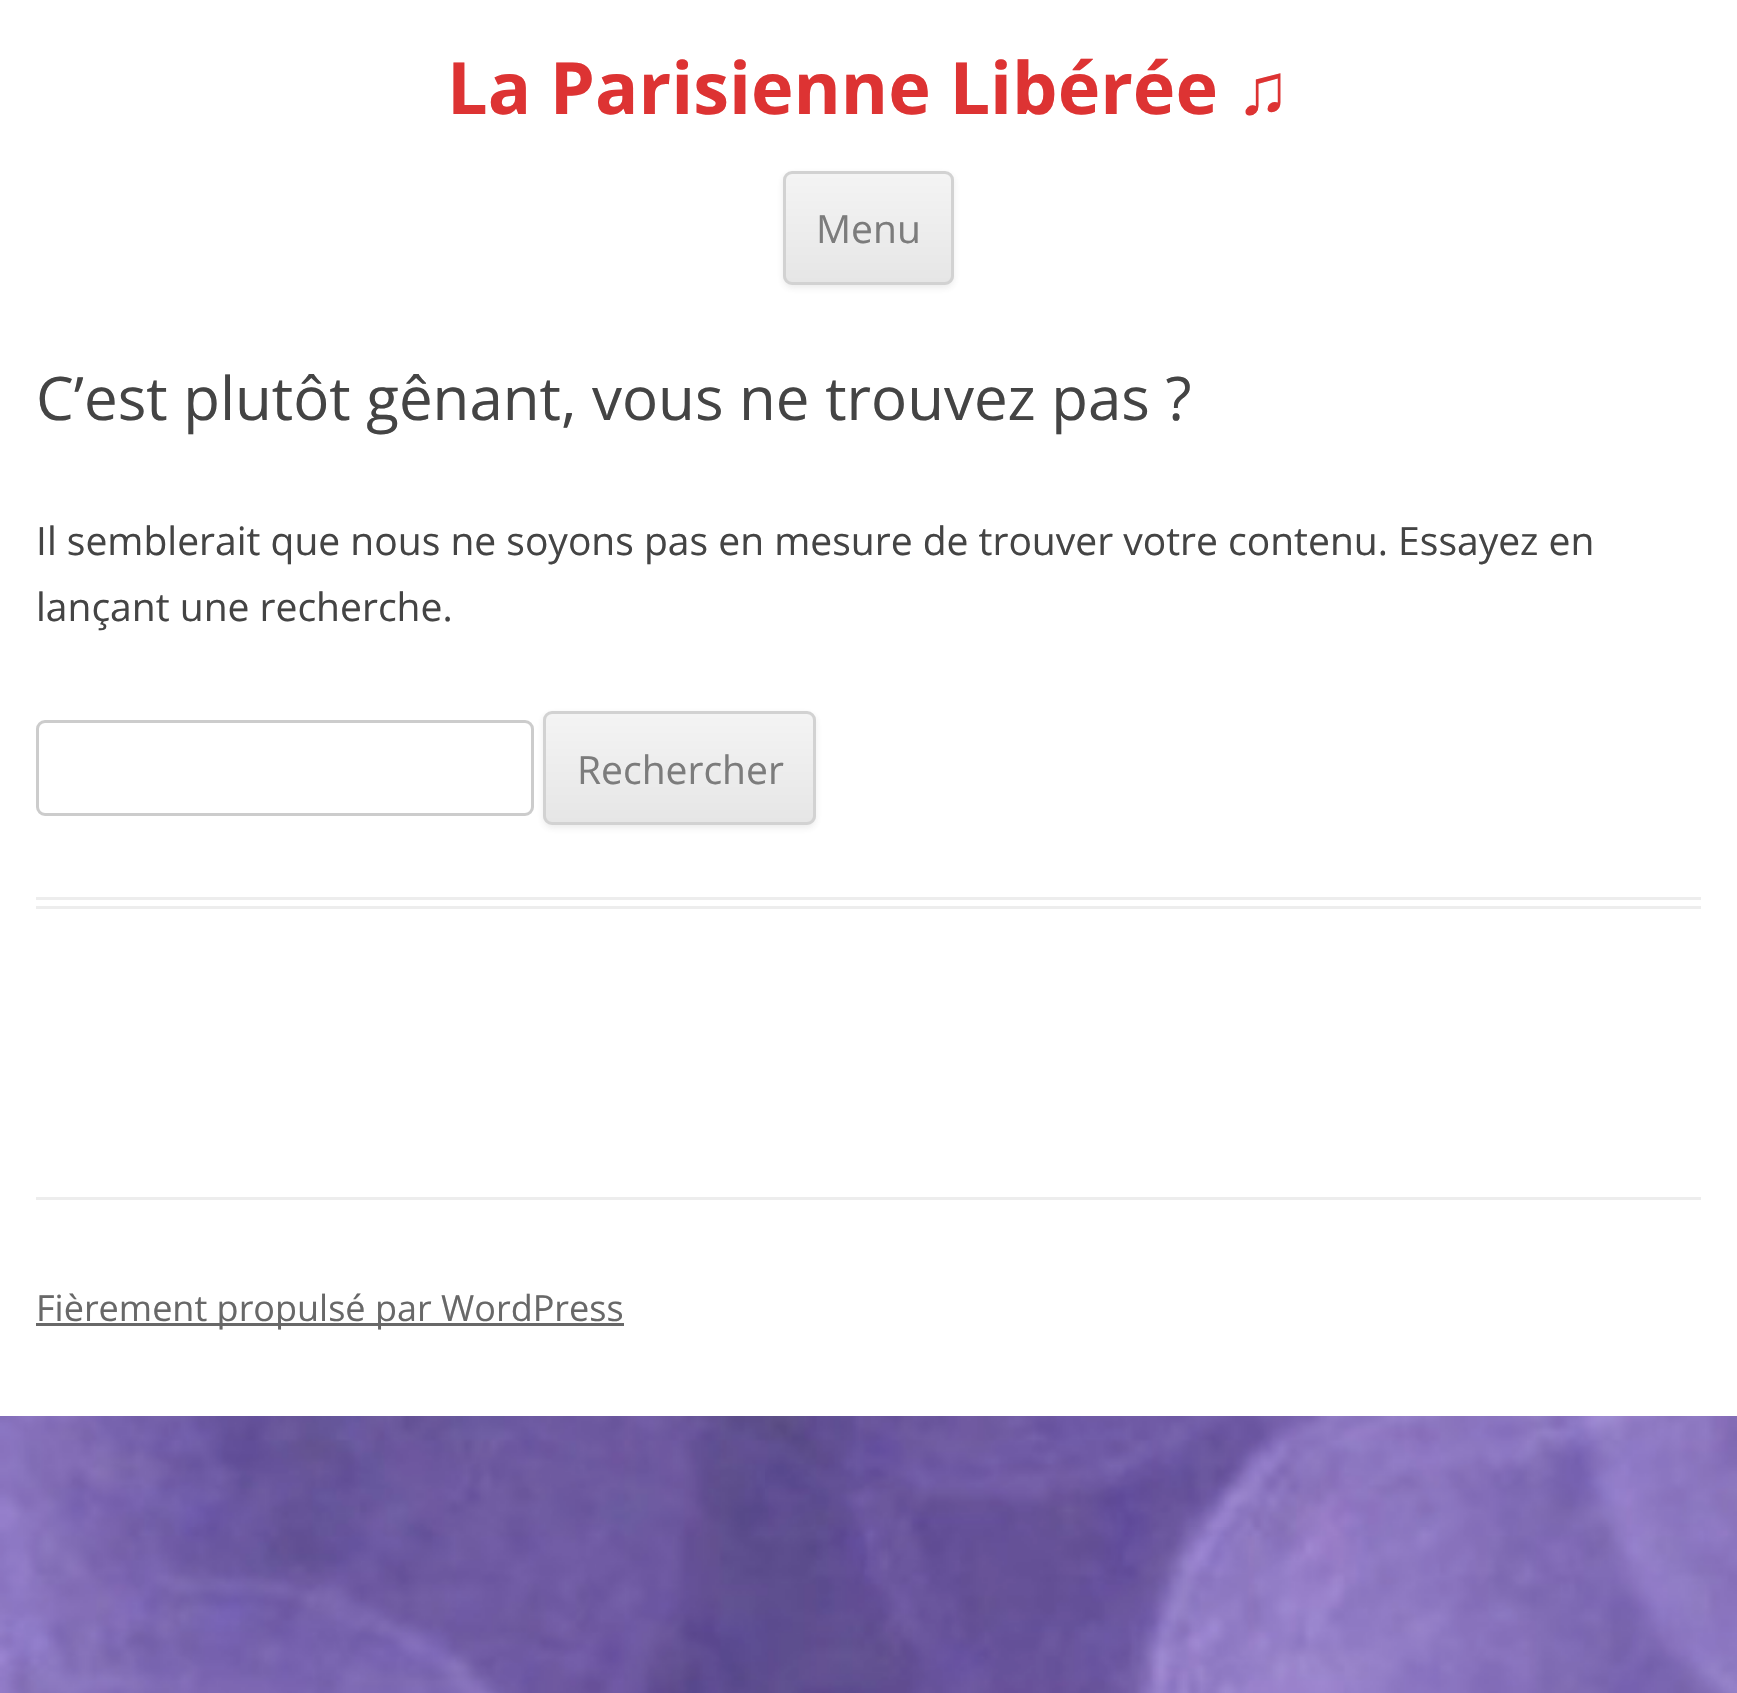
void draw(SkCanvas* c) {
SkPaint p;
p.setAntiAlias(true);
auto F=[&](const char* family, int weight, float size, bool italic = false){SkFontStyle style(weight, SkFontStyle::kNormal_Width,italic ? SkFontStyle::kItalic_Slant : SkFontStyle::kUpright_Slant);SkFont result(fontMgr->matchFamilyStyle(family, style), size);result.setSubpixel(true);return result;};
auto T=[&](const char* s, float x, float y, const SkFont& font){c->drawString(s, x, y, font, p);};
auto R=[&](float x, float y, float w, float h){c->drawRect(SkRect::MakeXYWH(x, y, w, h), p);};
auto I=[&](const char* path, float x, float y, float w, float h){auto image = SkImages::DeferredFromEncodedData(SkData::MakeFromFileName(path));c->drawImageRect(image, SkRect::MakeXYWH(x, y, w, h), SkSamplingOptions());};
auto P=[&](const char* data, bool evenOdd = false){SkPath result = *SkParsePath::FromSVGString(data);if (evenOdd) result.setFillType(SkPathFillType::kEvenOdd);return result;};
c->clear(0xffffffff);
I("1.png",0,1416,1737,277);
auto f1 = F("Open Sans",700,72);
p.setColor(0xffdd3333);
T("La Parisienne Libérée",447,114,f1);
auto f2 = F("Liberation Sans",700,72);
T("♫",1236,114,f2);
p.setColor(0x1a404040);
p.setMaskFilter(SkMaskFilter::MakeBlur(kNormal_SkBlurStyle, 3));
c->drawRoundRect(SkRect::MakeXYWH(783,174,171,114),9,9,p);
p.setMaskFilter(nullptr);
c->save();
c->clipPath(P("M792 171h153c5 0 9 4 9 9v96c0 5-4 9-9 9h-153c-5 0-9-4-9-9v-96c0-5 4-9 9-9z"),true);
{
const SkColor colors[] = {0xfff4f4f4,0xffe6e6e6};
const float stops[] = {0,1};
const SkPoint ends[] = {{869,174}, {869,282}};
p.setShader(SkGradientShader::MakeLinear(ends, colors, stops, 2, SkTileMode::kClamp));
p.setAlpha(255);
}
R(783,174,171,108);
c->restore();
p.setStroke(true);
p.setStrokeWidth(3);
p.setShader(nullptr);
p.setColor(0xffd2d2d2);
c->drawRoundRect(SkRect::MakeXYWH(784.5,172.5,168,111),7.5,7.5,p);
auto f3 = F("Open Sans",400,39);
p.setStroke(false);
p.setColor(0xff7c7c7c);
T("Menu",816,243,f3);
p.setColor(0xffededed);
R(36,897,1665,3);
R(36,906,1665,3);
auto f4 = F("Open Sans",400,60);
p.setColor(0xff444444);
T("C’est plutôt gênant, vous ne trouvez pas ?",36,420,f4);
T("Il semblerait que nous ne soyons pas en mesure de trouver votre contenu. Essayez en",36,555,f3);
T("lançant une recherche.",36,621,f3);
p.setStroke(true);
p.setColor(0xffcccccc);
c->drawRoundRect(SkRect::MakeXYWH(37.5,721.5,495,93),7.5,7.5,p);
p.setStroke(false);
p.setColor(0x1a404040);
p.setMaskFilter(SkMaskFilter::MakeBlur(kNormal_SkBlurStyle, 3));
c->drawRoundRect(SkRect::MakeXYWH(543,714,273,114),9,9,p);
p.setMaskFilter(nullptr);
c->save();
c->clipPath(P("M552 711h255c5 0 9 4 9 9v96c0 5-4 9-9 9h-255c-5 0-9-4-9-9v-96c0-5 4-9 9-9z"),true);
{
const SkColor colors[] = {0xfff4f4f4,0xffe6e6e6};
const float stops[] = {0,1};
const SkPoint ends[] = {{680,714}, {680,822}};
p.setShader(SkGradientShader::MakeLinear(ends, colors, stops, 2, SkTileMode::kClamp));
p.setAlpha(255);
}
R(543,714,273,108);
c->restore();
p.setStroke(true);
p.setShader(nullptr);
p.setColor(0xffd2d2d2);
c->drawRoundRect(SkRect::MakeXYWH(544.5,712.5,270,111),7.5,7.5,p);
p.setStroke(false);
p.setColor(0xff7c7c7c);
T("Rechercher",577,784,f3);
p.setColor(0xffededed);
R(36,1197,1665,3);
p.setColor(0xff686868);
R(36,1323,588,3);
auto f5 = F("Open Sans",400,36);
T("Fièrement propulsé par WordPress",36,1321,f5);
}
